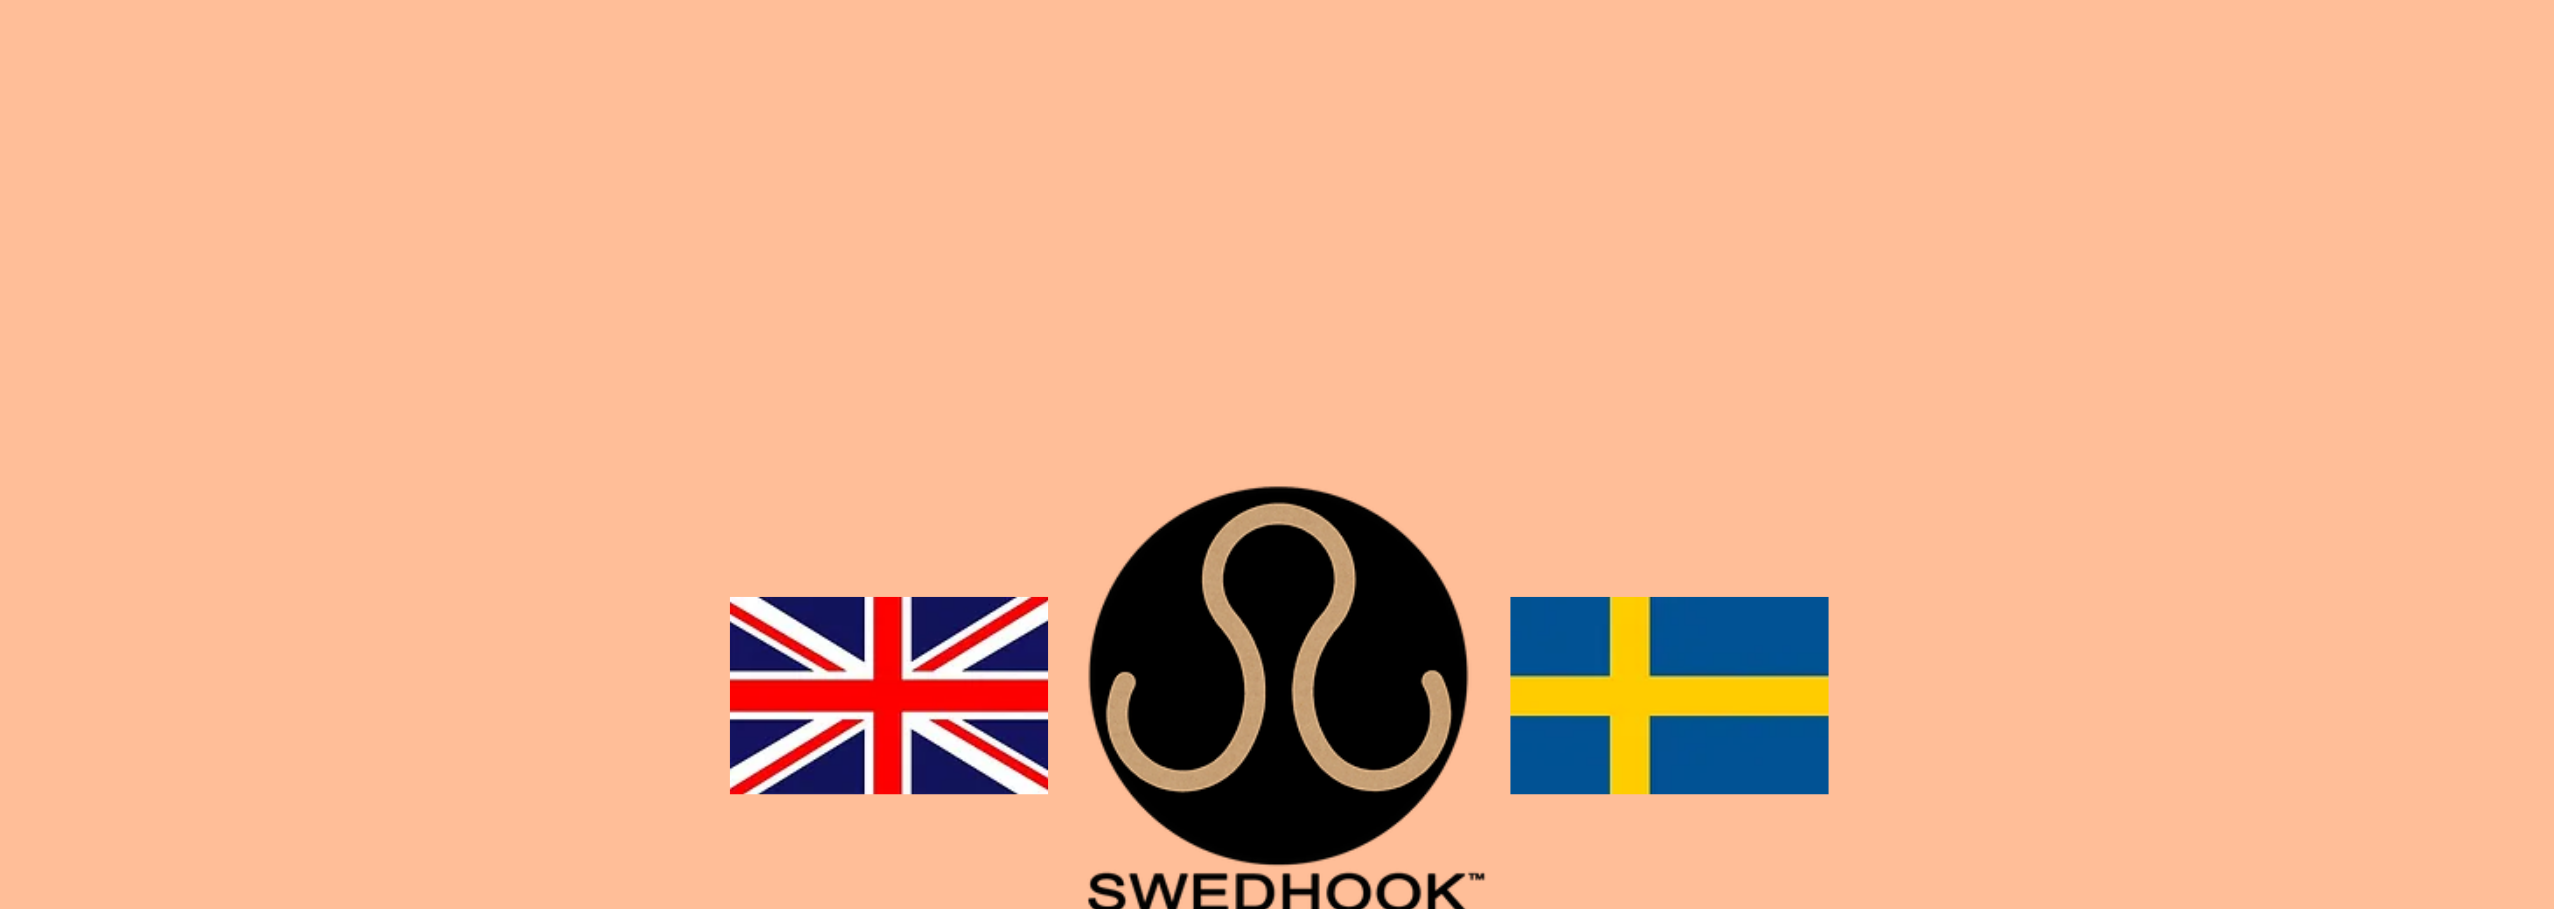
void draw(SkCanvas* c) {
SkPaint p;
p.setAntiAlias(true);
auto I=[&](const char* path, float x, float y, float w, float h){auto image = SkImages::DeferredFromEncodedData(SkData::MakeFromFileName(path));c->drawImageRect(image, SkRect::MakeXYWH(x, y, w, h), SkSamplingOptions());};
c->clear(0xffffbe98);
I("1.png",729,596,320,199);
I("2.png",1087,486,399,423);
I("3.png",1510,596,319,199);
}
